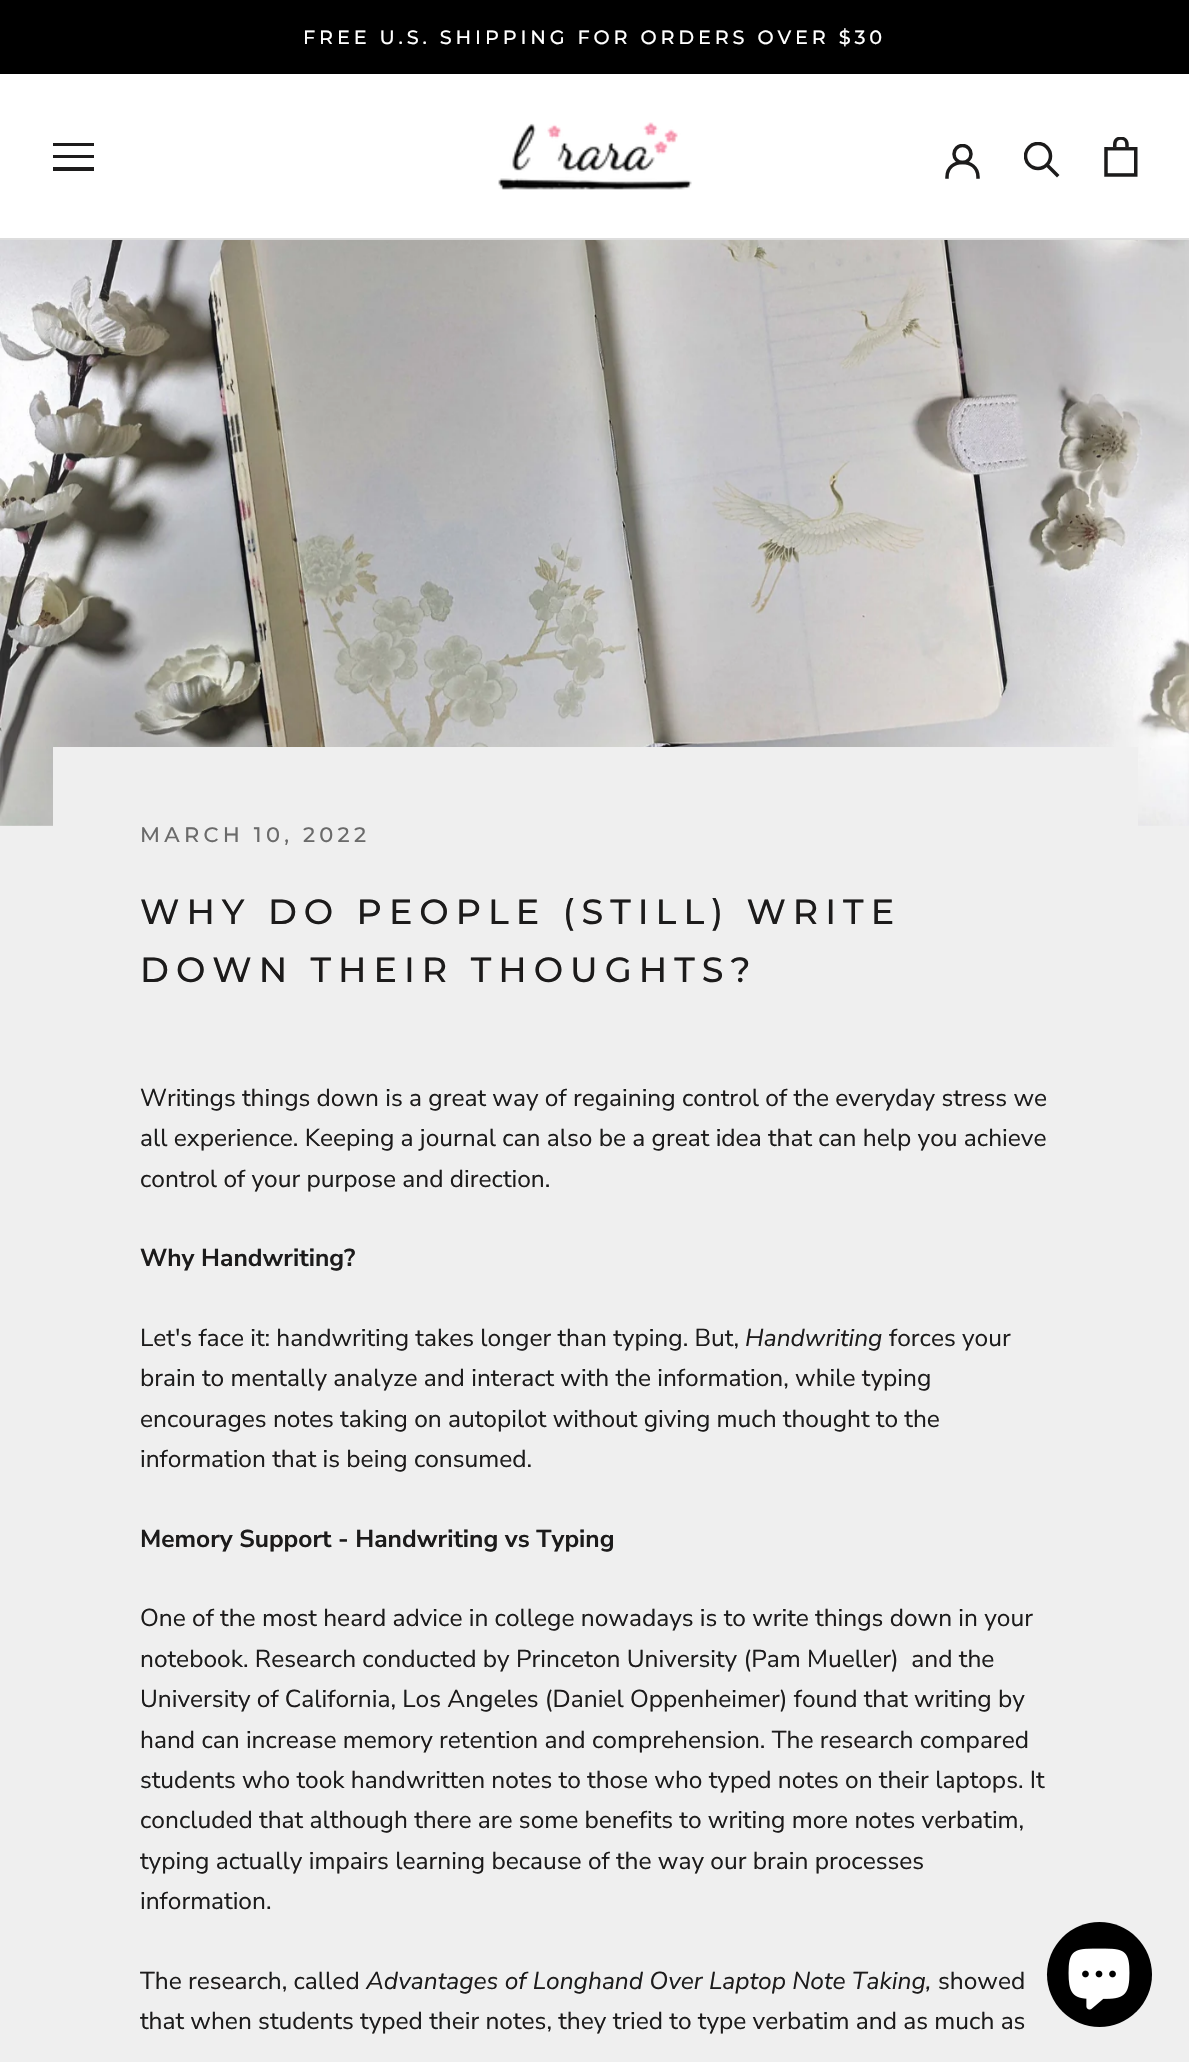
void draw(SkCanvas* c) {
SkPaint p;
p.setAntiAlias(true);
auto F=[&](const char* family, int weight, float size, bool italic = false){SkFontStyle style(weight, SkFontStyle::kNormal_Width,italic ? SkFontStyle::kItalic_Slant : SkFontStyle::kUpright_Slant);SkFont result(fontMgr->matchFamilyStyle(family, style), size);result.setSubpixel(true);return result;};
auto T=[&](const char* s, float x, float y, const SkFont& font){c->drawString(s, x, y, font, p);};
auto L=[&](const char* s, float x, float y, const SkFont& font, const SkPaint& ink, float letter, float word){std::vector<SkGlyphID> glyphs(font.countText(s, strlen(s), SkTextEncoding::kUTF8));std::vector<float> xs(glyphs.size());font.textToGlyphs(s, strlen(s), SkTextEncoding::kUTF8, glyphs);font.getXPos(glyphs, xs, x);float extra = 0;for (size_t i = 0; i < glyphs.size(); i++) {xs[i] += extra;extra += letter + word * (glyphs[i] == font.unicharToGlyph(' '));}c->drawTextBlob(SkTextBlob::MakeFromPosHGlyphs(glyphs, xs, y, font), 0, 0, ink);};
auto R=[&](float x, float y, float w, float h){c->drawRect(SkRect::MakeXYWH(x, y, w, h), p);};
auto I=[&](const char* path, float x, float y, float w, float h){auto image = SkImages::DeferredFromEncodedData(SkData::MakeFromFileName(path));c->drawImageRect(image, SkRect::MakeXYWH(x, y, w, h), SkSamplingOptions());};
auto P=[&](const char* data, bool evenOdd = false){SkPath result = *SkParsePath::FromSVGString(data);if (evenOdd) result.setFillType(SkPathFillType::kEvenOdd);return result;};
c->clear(0xffefefef);
p.setColor(0xff000000);
R(0,0,1189,74);
auto f1 = F("Montserrat",500,19.25);
p.setColor(0xffffffff);
L("FREE U.S. SHIPPING FOR ORDERS OVER $30",303,44,f1,p,3.85,0);
R(0,74,1189,164);
p.setColor(0xffdddddd);
R(0,238,1189,2);
c->save();
c->clipRect(SkRect::MakeXYWH(53,142,42,30));
p.setColor(0xff1c1b1b);
c->drawPath(P("M52 171v-4h42v4zm0-16h42v3h-42zm0-12h42v3h-42z"),p);
c->restore();
I("1.png",498,122,194,68);
p.setStroke(true);
p.setStrokeWidth(3.5);
p.setStrokeCap(SkPaint::kSquare_Cap);
c->drawPath(P("M947 177c0-19.5 31-19.5 31 0"),p);
c->save();
c->clipRect(SkRect::MakeXYWH(945,144,35,35));
p.setStrokeCap(SkPaint::kButt_Cap);
c->drawCircle(962.5,154,8.5,p);
c->restore();
p.setStrokeCap(SkPaint::kSquare_Cap);
c->drawPath(P("M1057 175l-10-10"),p);
c->save();
c->clipRect(SkRect::MakeXYWH(1024,142,37,37));
p.setStrokeCap(SkPaint::kButt_Cap);
c->drawCircle(1038,156,12.5,p);
c->restore();
I("2.png",1104,137,34,40);
I("3.png",0,240,1189,586);
p.setStroke(false);
p.setColor(0xffefefef);
R(53,747,1085,79);
auto f2 = F("Montserrat",500,21);
p.setColor(0xff6a6a6a);
L("MARCH 10, 2022",140,842,f2,p,4.25,0);
auto f3 = F("Montserrat",500,35);
p.setColor(0xff1c1b1b);
L("WHY DO PEOPLE (STILL) WRITE",140,924,f3,p,7,0);
L("DOWN THEIR THOUGHTS?",140,982,f3,p,7,0);
auto f4 = F("Nunito Sans",400,24.5);
T("Writings things down is a great way of regaining control of the everyday stress we",140,1106,f4);
T("all experience. Keeping a journal can also be a great idea that can help you achieve",140,1146,f4);
T("control of your purpose and direction.",140,1187,f4);
auto f5 = F("Nunito Sans",700,24.5);
T("Why Handwriting?",140,1266,f5);
T("Let's face it: handwriting takes longer than typing. But,",140,1346,f4);
auto f6 = F("Nunito Sans",400,24.5,true);
T("Handwriting",745,1346,f6);
T("forces your",889,1346,f4);
T("brain to mentally analyze and interact with the information, while typing",140,1386,f4);
T("encourages notes taking on autopilot without giving much thought to the",140,1427,f4);
T("information that is being consumed.",140,1467,f4);
T("Memory Support - Handwriting vs Typing",140,1547,f5);
T("One of the most heard advice in college nowadays is to write things down in your",140,1626,f4);
T("notebook. Research conducted by Princeton University (Pam Mueller)  and the",140,1667,f4);
T("University of California, Los Angeles (Daniel Oppenheimer) found that writing by",140,1707,f4);
T("hand can increase memory retention and comprehension. The research compared",140,1748,f4);
T("students who took handwritten notes to those who typed notes on their laptops. It",140,1788,f4);
T("concluded that although there are some benefits to writing more notes verbatim,",140,1828,f4);
T("typing actually impairs learning because of the way our brain processes",140,1869,f4);
T("information.",140,1909,f4);
T("The research, called",140,1989,f4);
T("Advantages of Longhand Over Laptop Note Taking,",366,1989,f6);
T("showed",938,1989,f4);
T("that when students typed their notes, they tried to type verbatim and as much as",140,2029,f4);
p.setColor(0xff000000);
c->drawCircle(1099.5,1974.5,52.5,p);
I("4.png",1068,1948,62,62);
}
